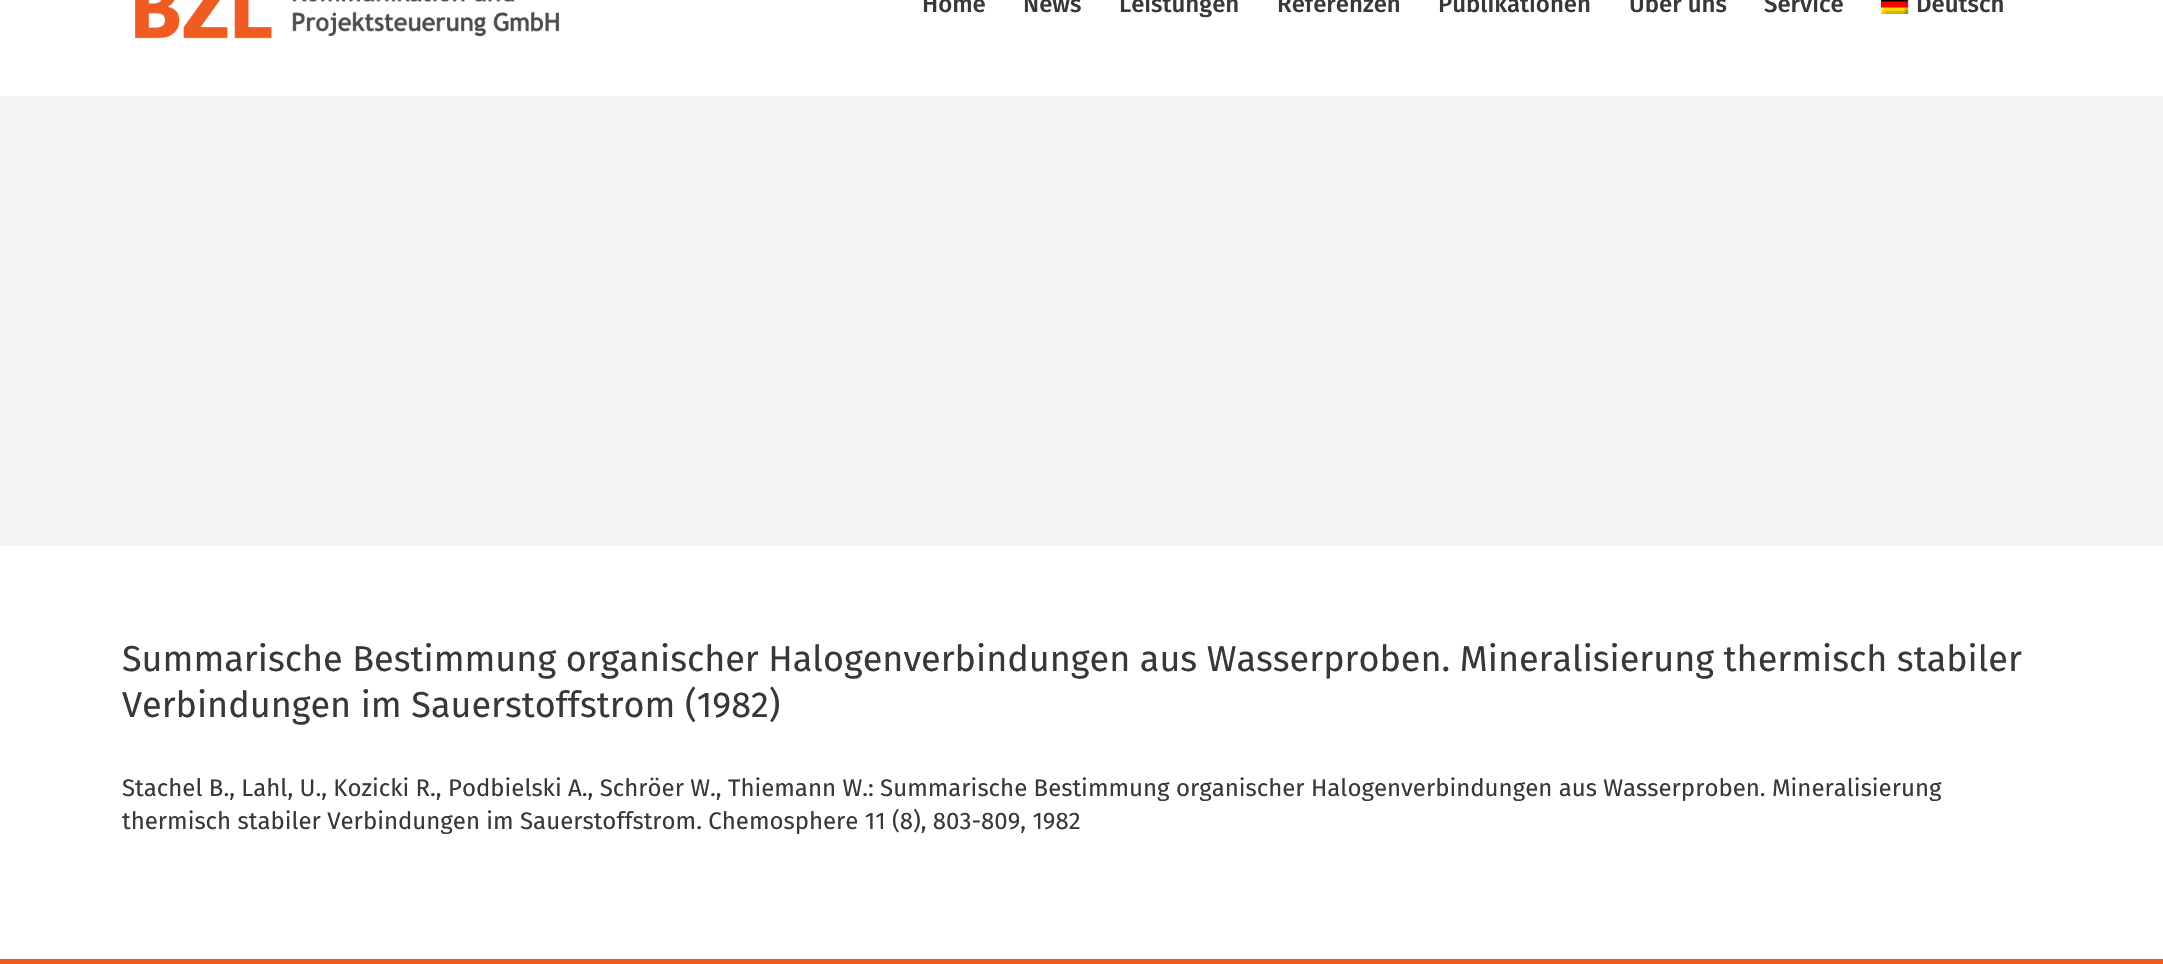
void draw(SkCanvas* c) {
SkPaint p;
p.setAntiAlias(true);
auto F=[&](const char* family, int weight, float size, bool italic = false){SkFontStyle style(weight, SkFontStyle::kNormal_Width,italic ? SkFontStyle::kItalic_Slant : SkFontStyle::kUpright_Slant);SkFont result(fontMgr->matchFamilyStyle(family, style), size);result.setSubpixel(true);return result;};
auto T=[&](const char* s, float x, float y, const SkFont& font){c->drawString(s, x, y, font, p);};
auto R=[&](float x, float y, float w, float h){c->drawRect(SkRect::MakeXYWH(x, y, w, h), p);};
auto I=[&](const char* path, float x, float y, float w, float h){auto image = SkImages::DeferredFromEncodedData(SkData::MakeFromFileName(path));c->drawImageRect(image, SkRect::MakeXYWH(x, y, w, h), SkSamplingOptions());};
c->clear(0xffffffff);
I("1.png",135,0,425,39);
auto f1 = F("Fira Sans",500,24);
p.setColor(0xff383739);
T("Home",922,12,f1);
T("News",1023,12,f1);
T("Leistungen",1119,12,f1);
T("Referenzen",1277,12,f1);
T("Publikationen",1438,12,f1);
T("Über uns",1629,12,f1);
T("Service",1764,12,f1);
I("2.png",1881,0,28,14);
T("Deutsch",1916,12,f1);
p.setColor(0xfff2f3f5);
R(0,96,2163,450);
auto f2 = F("Fira Sans",400,36);
p.setColor(0xff383739);
T("Summarische Bestimmung organischer Halogenverbindungen aus Wasserproben. Mineralisierung thermisch stabiler",122,671,f2);
T("Verbindungen im Sauerstoffstrom (1982)",122,717,f2);
auto f3 = F("Fira Sans",400,24);
T("Stachel B., Lahl, U., Kozicki R., Podbielski A., Schröer W., Thiemann W.: Summarische Bestimmung organischer Halogenverbindungen aus Wasserproben. Mineralisierung",122,796,f3);
T("thermisch stabiler Verbindungen im Sauerstoffstrom. Chemosphere 11 (8), 803-809, 1982",122,829,f3);
p.setColor(0xfff05b22);
R(0,959,2163,5);
}
